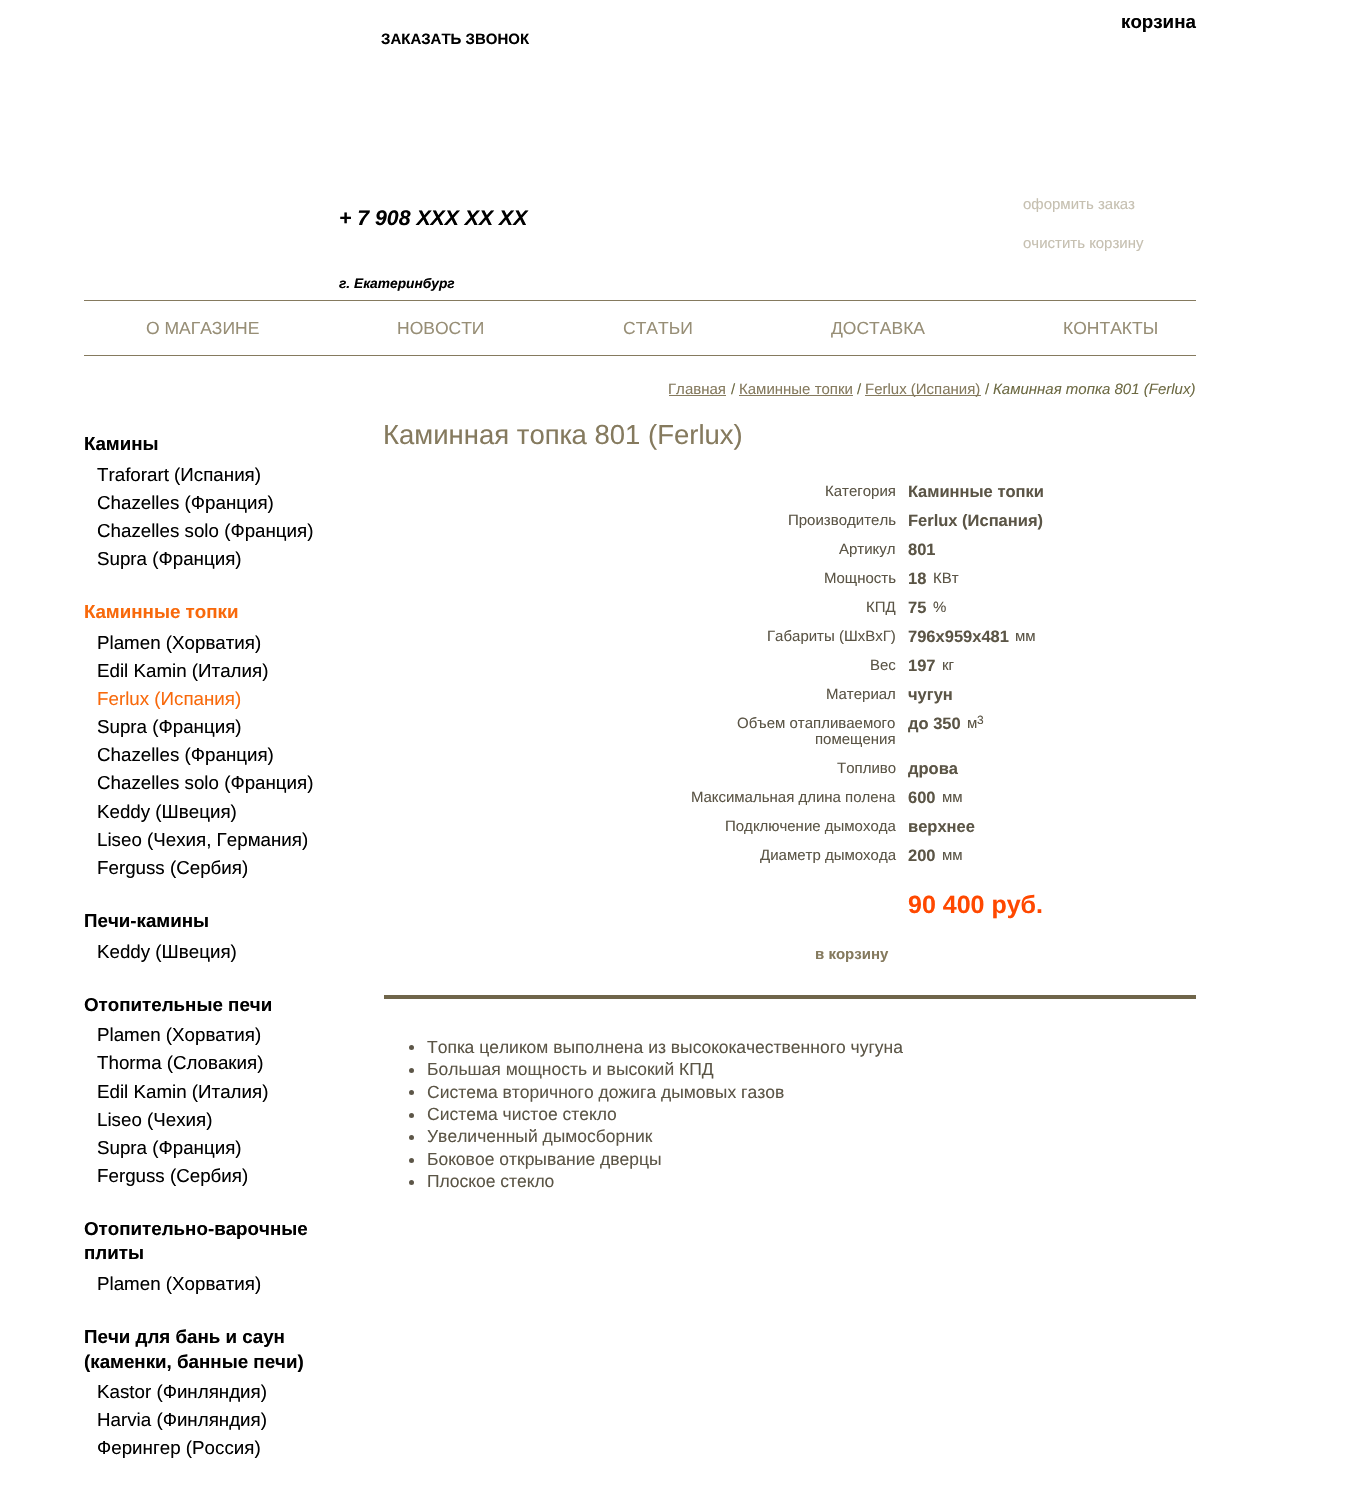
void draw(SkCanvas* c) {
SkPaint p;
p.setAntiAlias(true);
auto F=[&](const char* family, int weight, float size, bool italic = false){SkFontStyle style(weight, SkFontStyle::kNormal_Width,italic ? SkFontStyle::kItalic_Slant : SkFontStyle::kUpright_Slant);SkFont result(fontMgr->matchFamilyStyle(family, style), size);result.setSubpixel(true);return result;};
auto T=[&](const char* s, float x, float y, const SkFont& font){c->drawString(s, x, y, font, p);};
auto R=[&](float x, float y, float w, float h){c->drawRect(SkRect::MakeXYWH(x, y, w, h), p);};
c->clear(0xffffffff);
auto f1 = F("Liberation Sans",700,15);
p.setColor(0xff000000);
T("ЗАКАЗАТЬ ЗВОНОК",381,44,f1);
auto f2 = F("Liberation Sans",700,18.75);
T("корзина",1121,28,f2);
auto f3 = F("Liberation Sans",400,15);
p.setColor(0xffc6c0b1);
T("оформить заказ",1023,209,f3);
T("очистить корзину",1023,248,f3);
auto f4 = F("Liberation Sans",700,21.25,true);
p.setColor(0xff000000);
T("+ 7 908 XXX XX XX",339,225,f4);
auto f5 = F("Liberation Sans",700,13.75,true);
T("г. Екатеринбург",339,288,f5);
p.setColor(0xff857a5e);
R(84,300,1112,1);
R(84,355,1112,1);
auto f6 = F("Liberation Sans",400,17.5);
p.setColor(0xff978e76);
T("О МАГАЗИНЕ",146,334,f6);
T("НОВОСТИ",397,334,f6);
T("СТАТЬИ",623,334,f6);
T("ДОСТАВКА",831,334,f6);
T("КОНТАКТЫ",1063,334,f6);
p.setColor(0xff857a5e);
T("Главная",668,394,f3);
R(669,395,57,1);
p.setColor(0xff6d6a43);
T("/",731,394,f3);
p.setColor(0xff857a5e);
T("Каминные топки",739,394,f3);
R(739,395,114,1);
p.setColor(0xff6d6a43);
T("/",857,394,f3);
p.setColor(0xff857a5e);
R(865,395,116,1);
T("Ferlux (Испания)",865,394,f3);
p.setColor(0xff6d6a43);
T("/",985,394,f3);
auto f7 = F("Liberation Sans",400,15,true);
T("Каминная топка 801 (Ferlux)",993,394,f7);
p.setColor(0xff000000);
T("Камины",84,450,f2);
auto f8 = F("Liberation Sans",400,18.75);
T("Traforart (Испания)",97,481,f8);
T("Chazelles (Франция)",97,509,f8);
T("Chazelles solo (Франция)",97,537,f8);
T("Supra (Франция)",97,565,f8);
p.setColor(0xfff8690b);
T("Каминные топки",84,618,f2);
p.setColor(0xff000000);
T("Plamen (Хорватия)",97,649,f8);
T("Edil Kamin (Италия)",97,677,f8);
p.setColor(0xfff8690b);
T("Ferlux (Испания)",97,705,f8);
p.setColor(0xff000000);
T("Supra (Франция)",97,733,f8);
T("Chazelles (Франция)",97,761,f8);
T("Chazelles solo (Франция)",97,789,f8);
T("Keddy (Швеция)",97,818,f8);
T("Liseo (Чехия, Германия)",97,846,f8);
T("Ferguss (Сербия)",97,874,f8);
T("Печи-камины",84,927,f2);
T("Keddy (Швеция)",97,958,f8);
T("Отопительные печи",84,1011,f2);
T("Plamen (Хорватия)",97,1041,f8);
T("Thorma (Словакия)",97,1069,f8);
T("Edil Kamin (Италия)",97,1098,f8);
T("Liseo (Чехия)",97,1126,f8);
T("Supra (Франция)",97,1154,f8);
T("Ferguss (Сербия)",97,1182,f8);
T("Отопительно-варочные",84,1235,f2);
T("плиты",84,1259,f2);
T("Plamen (Хорватия)",97,1290,f8);
T("Печи для бань и саун",84,1343,f2);
T("(каменки, банные печи)",84,1368,f2);
T("Kastor (Финляндия)",97,1398,f8);
T("Harvia (Финляндия)",97,1426,f8);
T("Ферингер (Россия)",97,1454,f8);
auto f9 = F("Liberation Sans",400,27.5);
p.setColor(0xff857a5e);
T("Каминная топка 801 (Ferlux)",383,444,f9);
p.setColor(0xff5b5546);
T("Категория",825,496,f3);
auto f10 = F("Liberation Sans",700,16.5);
T("Каминные топки",908,497,f10);
T("Производитель",788,525,f3);
T("Ferlux (Испания)",908,526,f10);
T("Артикул",839,554,f3);
T("801",908,555,f10);
T("Мощность",824,583,f3);
T("18",908,584,f10);
T("КВт",933,583,f3);
T("КПД",866,612,f3);
T("75",908,613,f10);
T("%",933,612,f3);
T("Габариты (ШxВxГ)",767,641,f3);
T("796х959х481",908,642,f10);
T("мм",1015,641,f3);
T("Вес",870,670,f3);
T("197",908,671,f10);
T("кг",942,670,f3);
T("Материал",826,699,f3);
T("чугун",908,700,f10);
T("Объем отапливаемого",737,728,f3);
T("помещения",815,744,f3);
T("до 350",908,729,f10);
T("м",967,728,f3);
auto f11 = F("Liberation Sans",400,12);
T("3",977,724,f11);
T("Топливо",837,773,f3);
T("дрова",908,774,f10);
T("Максимальная длина полена",691,802,f3);
T("600",908,803,f10);
T("мм",942,802,f3);
T("Подключение дымохода",725,831,f3);
T("верхнее",908,832,f10);
T("Диаметр дымохода",760,860,f3);
T("200",908,861,f10);
T("мм",942,860,f3);
auto f12 = F("Liberation Sans",700,25);
p.setColor(0xffff4800);
T("90 400 руб.",908,913,f12);
p.setColor(0xff857a5e);
T("в корзину",815,959,f1);
p.setColor(0xff6f654a);
R(384,995,812,4);
p.setColor(0xff5d5648);
c->drawCircle(411.5,1047.5,2.5,p);
p.setColor(0xff5b5546);
T("Топка целиком выполнена из высококачественного чугуна",427,1053,f6);
p.setColor(0xff5d5648);
c->drawCircle(411.5,1070.5,2.5,p);
p.setColor(0xff5b5546);
T("Большая мощность и высокий КПД",427,1075,f6);
p.setColor(0xff5d5648);
c->drawCircle(411.5,1092.5,2.5,p);
p.setColor(0xff5b5546);
T("Система вторичного дожига дымовых газов",427,1098,f6);
p.setColor(0xff5d5648);
c->drawCircle(411.5,1115.5,2.5,p);
p.setColor(0xff5b5546);
T("Система чистое стекло",427,1120,f6);
p.setColor(0xff5d5648);
c->drawCircle(411.5,1137.5,2.5,p);
p.setColor(0xff5b5546);
T("Увеличенный дымосборник",427,1142,f6);
p.setColor(0xff5d5648);
c->drawCircle(411.5,1160.5,2.5,p);
p.setColor(0xff5b5546);
T("Боковое открывание дверцы",427,1165,f6);
p.setColor(0xff5d5648);
c->drawCircle(411.5,1182.5,2.5,p);
p.setColor(0xff5b5546);
T("Плоское стекло",427,1187,f6);
}
